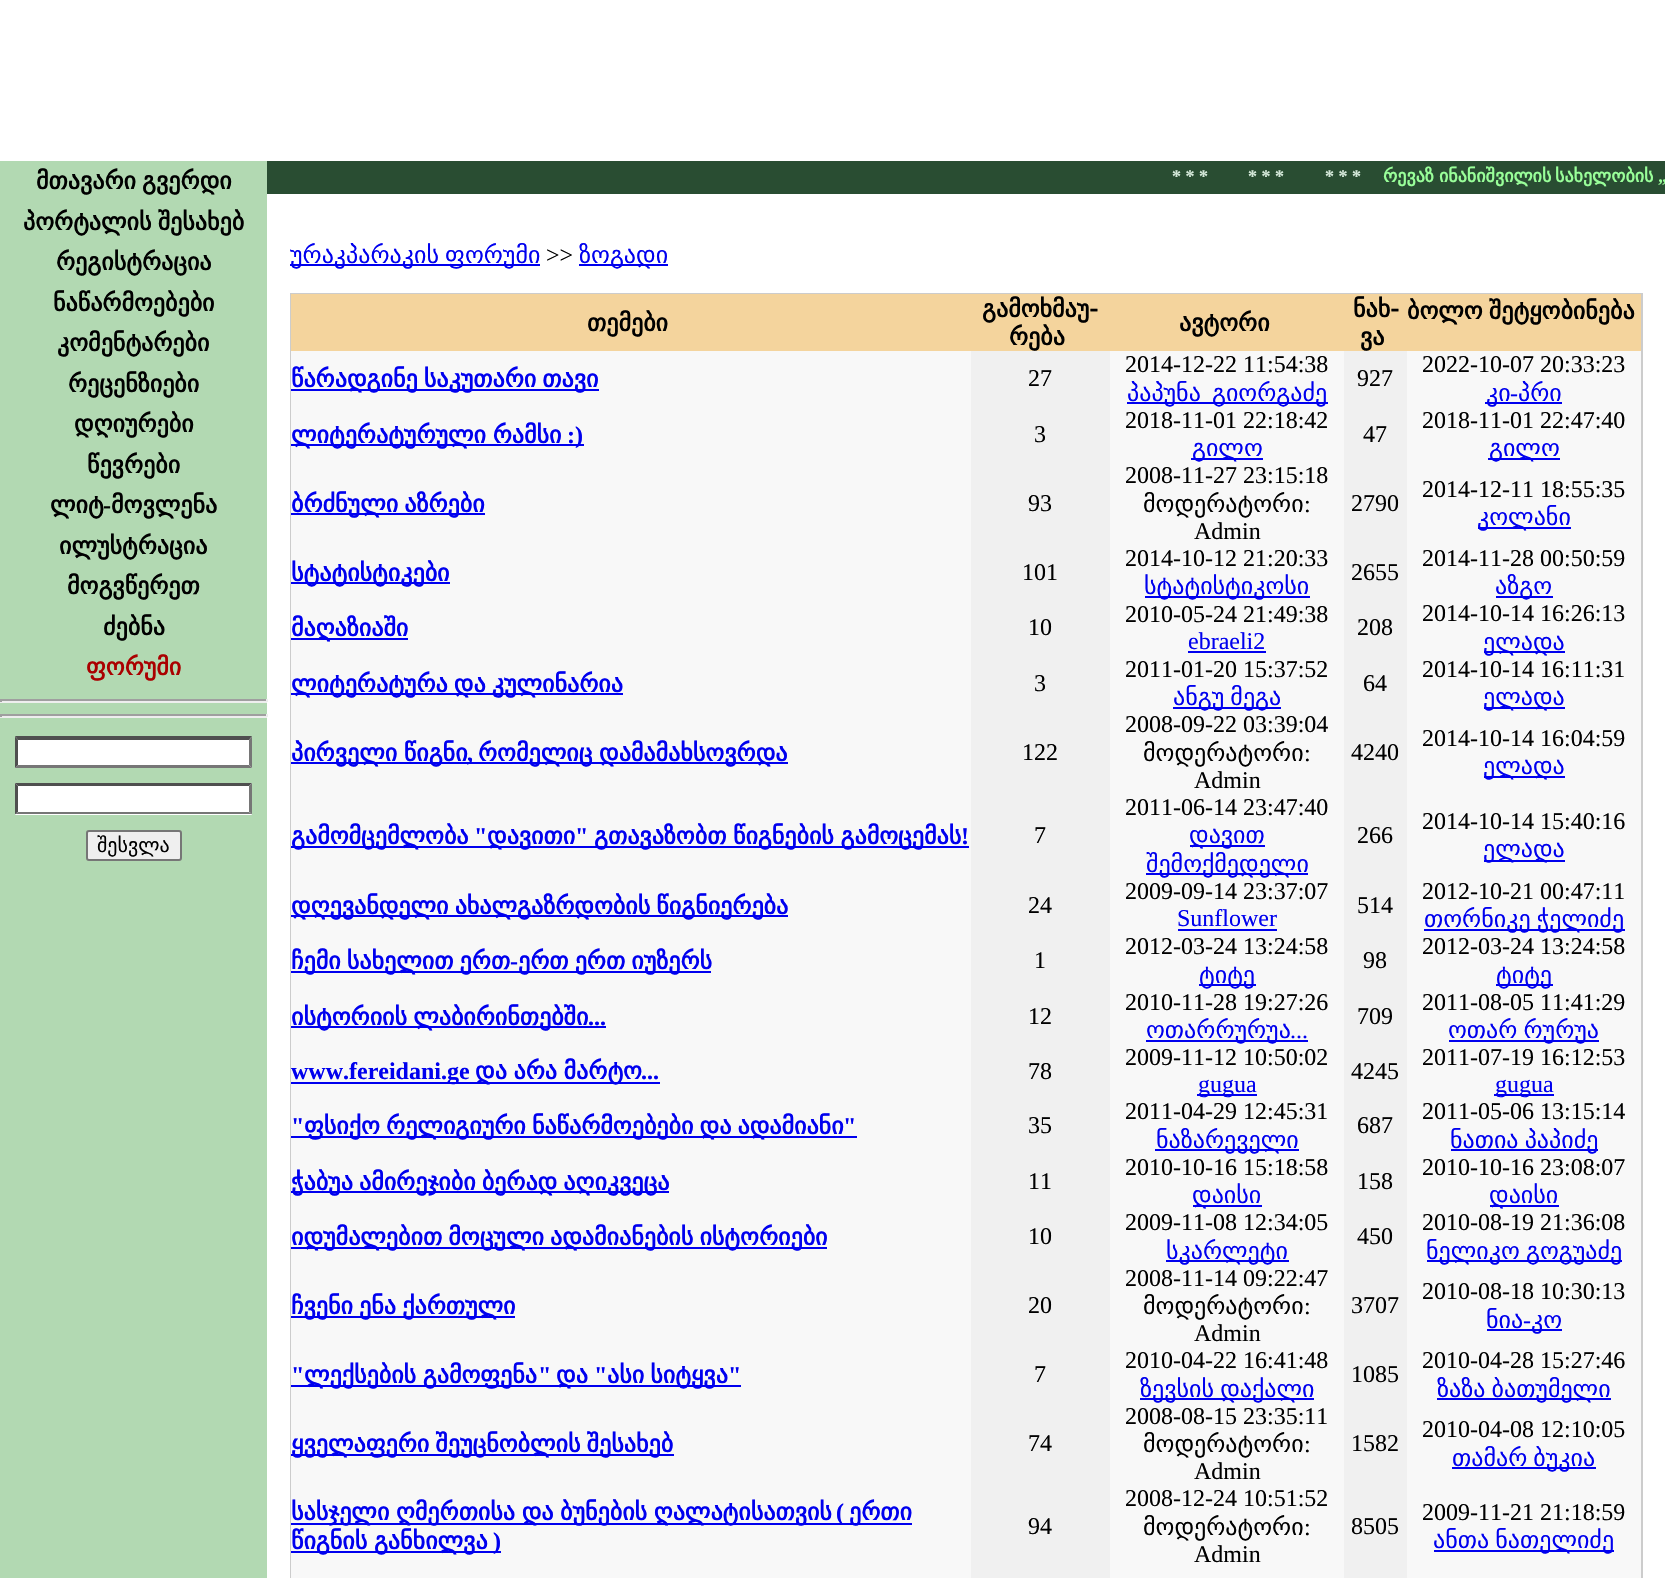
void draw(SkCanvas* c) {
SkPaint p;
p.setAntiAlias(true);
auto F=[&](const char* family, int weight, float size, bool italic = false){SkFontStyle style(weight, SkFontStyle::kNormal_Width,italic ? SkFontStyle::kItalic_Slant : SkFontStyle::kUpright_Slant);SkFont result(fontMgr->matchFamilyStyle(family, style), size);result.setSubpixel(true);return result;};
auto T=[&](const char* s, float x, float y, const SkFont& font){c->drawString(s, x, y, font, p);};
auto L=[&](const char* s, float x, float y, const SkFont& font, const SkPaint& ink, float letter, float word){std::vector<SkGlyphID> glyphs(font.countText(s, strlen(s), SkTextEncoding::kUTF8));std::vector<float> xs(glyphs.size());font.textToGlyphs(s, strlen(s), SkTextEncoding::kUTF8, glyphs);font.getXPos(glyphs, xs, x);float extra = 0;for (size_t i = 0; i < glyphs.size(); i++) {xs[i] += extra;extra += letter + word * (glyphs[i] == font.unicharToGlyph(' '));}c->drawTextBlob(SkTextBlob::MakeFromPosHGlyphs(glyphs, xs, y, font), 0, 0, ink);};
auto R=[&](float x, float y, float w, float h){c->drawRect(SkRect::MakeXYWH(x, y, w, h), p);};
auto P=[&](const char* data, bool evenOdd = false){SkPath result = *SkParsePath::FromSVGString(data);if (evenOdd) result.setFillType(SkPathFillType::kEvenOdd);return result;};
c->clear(0xffffffff);
p.setColor(0xffb2d9b2);
R(0,161,267,1417);
auto f1 = F("DejaVu Sans",700,24);
p.setColor(0xff000000);
L("მთავარი გვერდი",36,189,f1,p,0,-1.5);
L("პორტალის შესახებ",23,230,f1,p,0,-1.5);
T("რეგისტრაცია",56,270,f1);
T("ნაწარმოებები",53,311,f1);
T("კომენტარები",57,351,f1);
T("რეცენზიები",68,392,f1);
T("დღიურები",74,432,f1);
T("წევრები",87,473,f1);
T("ლიტ",50,513,f1);
auto f2 = F("Liberation Serif",700,24);
T("-",103,513,f2);
T("მოვლენა",111,513,f1);
T("ილუსტრაცია",59,554,f1);
T("მოგვწერეთ",67,594,f1);
T("ძებნა",103,635,f1);
p.setColor(0xffaa0000);
T("ფორუმი",86,675,f1);
p.setColor(0xff9f9f9f);
R(0,699,267,2);
p.setColor(0xffeeeeee);
R(266,699,2,3);
R(0,701,267,2);
p.setColor(0xff9f9f9f);
R(0,699,2,3);
R(0,714,267,2);
p.setColor(0xffeeeeee);
R(266,714,2,3);
R(0,716,267,2);
p.setColor(0xff9f9f9f);
R(0,714,2,3);
p.setColor(0xffffffff);
R(15,737,237,31);
p.setColor(0xff4f4f4f);
c->drawPath(P("M15 736h237l-3 4h-231z"),p);
p.setColor(0xff767676);
c->drawPath(P("M252 736.5v31.5l-3-3v-25.5z"),p);
c->drawPath(P("M252 768h-237l3-3h231z"),p);
p.setColor(0xff4f4f4f);
c->drawPath(P("M15 768v-31.5l3 3v25.5z"),p);
p.setColor(0xffffffff);
R(15,783,237,32);
p.setColor(0xff4f4f4f);
c->drawPath(P("M15 783h237l-3 3h-231z"),p);
p.setColor(0xff767676);
c->drawPath(P("M252 783v31.5l-3-3v-25.5z"),p);
c->drawPath(P("M252 814h-237l3-2h231z"),p);
p.setColor(0xff4f4f4f);
c->drawPath(P("M15 814.5v-31.5l3 3v25.5z"),p);
p.setColor(0xffefefef);
c->drawRoundRect(SkRect::MakeXYWH(87,831,94,29),2,2,p);
p.setStroke(true);
p.setStrokeWidth(2);
p.setColor(0xff767676);
c->drawRoundRect(SkRect::MakeXYWH(87,831,94,29),2,2,p);
auto f3 = F("DejaVu Sans",400,20);
p.setStroke(false);
p.setColor(0xff000000);
T("შესვლა",97,852,f3);
p.setColor(0xff294d32);
R(267,161,1398,33);
auto f4 = F("Liberation Serif",700,18);
p.setColor(0xffd3e7d8);
T("* * *",1172,182,f4);
T("* * *",1248,182,f4);
T("* * *",1325,182,f4);
auto f5 = F("DejaVu Sans",700,18);
p.setColor(0xff99ff99);
T("რევაზ",1383,182,f5);
T("ინანიშვილის",1439,182,f5);
T("სახელობის",1555,182,f5);
T("„",1658,182,f4);
p.setColor(0xff0000ee);
R(290,264,250,2);
auto f6 = F("DejaVu Sans",400,24);
L("ურაკპარაკის ფორუმი",290,263,f6,p,0,-1.5);
auto f7 = F("Liberation Serif",400,24);
p.setColor(0xff000000);
T(">>",546,263,f7);
p.setColor(0xff0000ee);
R(579,264,89,2);
T("ზოგადი",579,263,f6);
p.setStroke(true);
p.setColor(0xffcccccc);
c->drawRect(SkRect::MakeXYWH(291,294,1351,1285),p);
p.setStroke(false);
p.setColor(0xfff4d49d);
R(291,294,1350,57);
p.setColor(0xff000000);
T("თემები",587,331,f1);
T("გამოხმაუ-",982,317,f1);
T("რება",1009,345,f1);
T("ავტორი",1179,331,f1);
T("ნახ-",1353,317,f1);
T("ვა",1360,345,f1);
L("ბოლო შეტყობინება",1407,319,f1,p,0,-1.5);
p.setColor(0xfff8f8f8);
R(291,351,1350,1227);
p.setColor(0xff0000ee);
R(291,389,308,2);
L("წარადგინე საკუთარი თავი",291,387,f1,p,0,-1.5);
p.setColor(0xfff0f0f0);
R(971,351,139,1227);
p.setColor(0xff000000);
T("27",1028,386,f7);
T("2014-12-22 11:54:38",1125,372,f7);
p.setColor(0xff0000ee);
R(1127,402,201,2);
T("პაპუნა",1127,401,f6);
T("გიორგაძე",1212,401,f6);
p.setColor(0xfff0f0f0);
R(1344,351,63,1227);
p.setColor(0xff000000);
T("927",1357,386,f7);
T("2022-10-07 20:33:23",1422,372,f7);
p.setColor(0xff0000ee);
R(1485,402,77,2);
T("კი",1486,401,f6);
T("-",1510,401,f7);
T("პრი",1518,401,f6);
R(291,444,293,2);
L("ლიტერატურული რამსი",291,443,f1,p,0,-1);
T(":)",567,443,f2);
p.setColor(0xff000000);
T("3",1034,442,f7);
T("2018-11-01 22:18:42",1125,428,f7);
p.setColor(0xff0000ee);
R(1191,458,72,2);
T("გილო",1192,456,f6);
p.setColor(0xff000000);
T("47",1363,442,f7);
T("2018-11-01 22:47:40",1422,428,f7);
p.setColor(0xff0000ee);
R(1488,458,72,2);
T("გილო",1489,456,f6);
R(291,513,194,2);
L("ბრძნული აზრები",291,512,f1,p,0,-1.5);
p.setColor(0xff000000);
T("93",1028,511,f7);
T("2008-11-27 23:15:18",1125,483,f7);
T("მოდერატორი",1143,512,f6);
T(":",1304,512,f7);
T("Admin",1194,539,f7);
T("2790",1351,511,f7);
T("2014-12-11 18:55:35",1422,497,f7);
p.setColor(0xff0000ee);
R(1478,527,93,2);
T("კოლანი",1477,525,f6);
R(291,582,159,2);
T("სტატისტიკები",291,581,f1);
p.setColor(0xff000000);
T("101",1022,580,f7);
T("2014-10-12 21:20:33",1125,566,f7);
p.setColor(0xff0000ee);
R(1145,596,165,2);
T("სტატისტიკოსი",1144,594,f6);
p.setColor(0xff000000);
T("2655",1351,580,f7);
T("2014-11-28 00:50:59",1422,566,f7);
p.setColor(0xff0000ee);
R(1496,596,57,2);
T("აზგო",1495,594,f6);
R(291,638,117,2);
T("მაღაზიაში",291,636,f1);
p.setColor(0xff000000);
T("10",1028,635,f7);
T("2010-05-24 21:49:38",1125,622,f7);
p.setColor(0xff0000ee);
T("ebraeli2",1188,649,f7);
R(1188,651,78,2);
p.setColor(0xff000000);
T("208",1357,635,f7);
T("2014-10-14 16:26:13",1422,621,f7);
p.setColor(0xff0000ee);
R(1484,651,81,2);
T("ელადა",1483,650,f6);
R(291,693,332,2);
L("ლიტერატურა და კულინარია",291,692,f1,p,0,-1.5);
p.setColor(0xff000000);
T("3",1034,691,f7);
T("2011-01-20 15:37:52",1125,677,f7);
p.setColor(0xff0000ee);
R(1173,707,108,2);
L("ანგუ მეგა",1173,705,f6,p,0,-1.5);
p.setColor(0xff000000);
T("64",1363,691,f7);
T("2014-10-14 16:11:31",1422,677,f7);
p.setColor(0xff0000ee);
R(1484,707,81,2);
T("ელადა",1483,705,f6);
R(291,762,497,2);
L("პირველი წიგნი",291,761,f1,p,0,-1);
T(",",467,761,f2);
L("რომელიც დამამახსოვრდა",478,761,f1,p,0,-1);
p.setColor(0xff000000);
T("122",1022,760,f7);
T("2008-09-22 03:39:04",1125,732,f7);
T("მოდერატორი",1143,761,f6);
T(":",1304,761,f7);
T("Admin",1194,788,f7);
T("4240",1351,760,f7);
T("2014-10-14 16:04:59",1422,746,f7);
p.setColor(0xff0000ee);
R(1484,776,81,2);
T("ელადა",1483,774,f6);
R(291,846,678,2);
T("გამომცემლობა",291,844,f1);
T("\"",474,844,f2);
T("დავითი",487,844,f1);
T("\"",575,844,f2);
L("გთავაზობთ წიგნების გამოცემას",594,844,f1,p,0,-1);
T("!",961,844,f2);
p.setColor(0xff000000);
T("7",1034,843,f7);
T("2011-06-14 23:47:40",1125,815,f7);
p.setColor(0xff0000ee);
R(1190,845,75,2);
T("დავით",1189,843,f6);
R(1146,873,162,2);
T("შემოქმედელი",1146,872,f6);
p.setColor(0xff000000);
T("266",1357,843,f7);
T("2014-10-14 15:40:16",1422,829,f7);
p.setColor(0xff0000ee);
R(1484,860,81,2);
T("ელადა",1483,857,f6);
R(291,915,497,2);
L("დღევანდელი ახალგაზრდობის წიგნიერება",291,914,f1,p,0,-1.5);
p.setColor(0xff000000);
T("24",1028,913,f7);
T("2009-09-14 23:37:07",1125,899,f7);
p.setColor(0xff0000ee);
T("Sunflower",1177,926,f7);
R(1178,929,99,2);
p.setColor(0xff000000);
T("514",1357,913,f7);
T("2012-10-21 00:47:11",1422,899,f7);
p.setColor(0xff0000ee);
R(1424,929,201,2);
L("თორნიკე ჭელიძე",1424,927,f6,p,0,-1.5);
R(291,971,420,2);
L("ჩემი სახელით ერთ",291,969,f1,p,0,-1.5);
T("-",510,969,f2);
L("ერთ ერთ იუზერს",518,969,f1,p,0,-1.5);
p.setColor(0xff000000);
T("1",1034,968,f7);
T("2012-03-24 13:24:58",1125,954,f7);
p.setColor(0xff0000ee);
R(1199,984,57,2);
T("ტიტე",1199,983,f6);
p.setColor(0xff000000);
T("98",1363,968,f7);
T("2012-03-24 13:24:58",1422,954,f7);
p.setColor(0xff0000ee);
R(1496,984,57,2);
T("ტიტე",1496,983,f6);
R(291,1026,315,2);
L("ისტორიის ლაბირინთებში",291,1025,f1,p,0,-1.5);
T("...",588,1025,f2);
p.setColor(0xff000000);
T("12",1028,1024,f7);
T("2010-11-28 19:27:26",1125,1010,f7);
p.setColor(0xff0000ee);
R(1146,1040,162,2);
T("ოთარრურუა",1146,1038,f6);
T("...",1290,1038,f7);
p.setColor(0xff000000);
T("709",1357,1024,f7);
T("2011-08-05 11:41:29",1422,1010,f7);
p.setColor(0xff0000ee);
R(1449,1040,150,2);
L("ოთარ რურუა",1448,1038,f6,p,0,-1.5);
R(291,1082,369,2);
T("www.fereidani.ge",291,1079,f2);
L("და არა მარტო",475,1079,f1,p,0,-1);
T("...",641,1079,f2);
p.setColor(0xff000000);
T("78",1028,1079,f7);
T("2009-11-12 10:50:02",1125,1065,f7);
p.setColor(0xff0000ee);
R(1197,1094,60,2);
T("gugua",1198,1092,f7);
p.setColor(0xff000000);
T("4245",1351,1079,f7);
T("2011-07-19 16:12:53",1422,1065,f7);
p.setColor(0xff0000ee);
R(1494,1094,60,2);
T("gugua",1495,1092,f7);
T("\"",291,1134,f2);
R(291,1136,566,2);
L("ფსიქო რელიგიური ნაწარმოებები და ადამიანი",304,1134,f1,p,0,-1.5);
T("\"",843,1134,f2);
p.setColor(0xff000000);
T("35",1028,1133,f7);
T("2011-04-29 12:45:31",1125,1119,f7);
p.setColor(0xff0000ee);
R(1155,1149,144,2);
T("ნაზარეველი",1156,1148,f6);
p.setColor(0xff000000);
T("687",1357,1133,f7);
T("2011-05-06 13:15:14",1422,1119,f7);
p.setColor(0xff0000ee);
R(1451,1149,147,2);
L("ნათია პაპიძე",1450,1148,f6,p,0,-1.5);
R(291,1191,378,2);
L("ჭაბუა ამირეჯიბი ბერად აღიკვეცა",291,1190,f1,p,0,-1.5);
p.setColor(0xff000000);
T("11",1028,1189,f7);
T("2010-10-16 15:18:58",1125,1175,f7);
p.setColor(0xff0000ee);
R(1193,1205,69,2);
T("დაისი",1192,1203,f6);
p.setColor(0xff000000);
T("158",1357,1189,f7);
T("2010-10-16 23:08:07",1422,1175,f7);
p.setColor(0xff0000ee);
R(1490,1205,69,2);
T("დაისი",1489,1203,f6);
R(291,1247,536,2);
L("იდუმალებით მოცული ადამიანების ისტორიები",291,1245,f1,p,0,-1.5);
p.setColor(0xff000000);
T("10",1028,1244,f7);
T("2009-11-08 12:34:05",1125,1230,f7);
p.setColor(0xff0000ee);
R(1166,1260,123,2);
T("სკარლეტი",1166,1259,f6);
p.setColor(0xff000000);
T("450",1357,1244,f7);
T("2010-08-19 21:36:08",1422,1230,f7);
p.setColor(0xff0000ee);
R(1427,1260,195,2);
L("ნელიკო გოგუაძე",1426,1259,f6,p,0,-1.5);
R(291,1316,224,2);
L("ჩვენი ენა ქართული",291,1314,f1,p,0,-1.5);
p.setColor(0xff000000);
T("20",1028,1313,f7);
T("2008-11-14 09:22:47",1125,1286,f7);
T("მოდერატორი",1143,1314,f6);
T(":",1304,1314,f7);
T("Admin",1194,1341,f7);
T("3707",1351,1313,f7);
T("2010-08-18 10:30:13",1422,1299,f7);
p.setColor(0xff0000ee);
T("ნია",1486,1328,f6);
T("-",1523,1328,f7);
R(1487,1329,75,2);
T("კო",1531,1328,f6);
T("\"",291,1383,f2);
R(291,1385,450,2);
L("ლექსების გამოფენა",304,1383,f1,p,0,-1);
T("\"",538,1383,f2);
T("და",556,1383,f1);
T("\"",594,1383,f2);
L("ასი სიტყვა",607,1383,f1,p,0,-1.5);
T("\"",728,1383,f2);
p.setColor(0xff000000);
T("7",1034,1382,f7);
T("2010-04-22 16:41:48",1125,1368,f7);
p.setColor(0xff0000ee);
R(1140,1398,174,2);
L("ზევსის დაქალი",1140,1397,f6,p,0,-1.5);
p.setColor(0xff000000);
T("1085",1351,1382,f7);
T("2010-04-28 15:27:46",1422,1368,f7);
p.setColor(0xff0000ee);
R(1437,1398,174,2);
L("ზაზა ბათუმელი",1437,1397,f6,p,0,-1.5);
R(291,1454,383,2);
L("ყველაფერი შეუცნობლის შესახებ",291,1452,f1,p,0,-1.5);
p.setColor(0xff000000);
T("74",1028,1451,f7);
T("2008-08-15 23:35:11",1125,1424,f7);
T("მოდერატორი",1143,1452,f6);
T(":",1304,1452,f7);
T("Admin",1194,1479,f7);
T("1582",1351,1451,f7);
T("2010-04-08 12:10:05",1422,1437,f7);
p.setColor(0xff0000ee);
R(1452,1467,144,2);
L("თამარ ბუკია",1452,1466,f6,p,0,-1.5);
R(291,1523,621,2);
L("სასჯელი ღმერთისა და ბუნების ღალატისათვის",291,1520,f1,p,0,-1);
T("(",836,1520,f2);
T("ერთი",849,1520,f1);
R(291,1551,210,2);
L("წიგნის განხილვა",291,1549,f1,p,0,-1);
T(")",493,1549,f2);
p.setColor(0xff000000);
T("94",1028,1534,f7);
T("2008-12-24 10:51:52",1125,1506,f7);
T("მოდერატორი",1143,1535,f6);
T(":",1304,1535,f7);
T("Admin",1194,1562,f7);
T("8505",1351,1534,f7);
T("2009-11-21 21:18:59",1422,1520,f7);
p.setColor(0xff0000ee);
R(1434,1550,180,2);
L("ანთა ნათელიძე",1433,1548,f6,p,0,-1.5);
}
